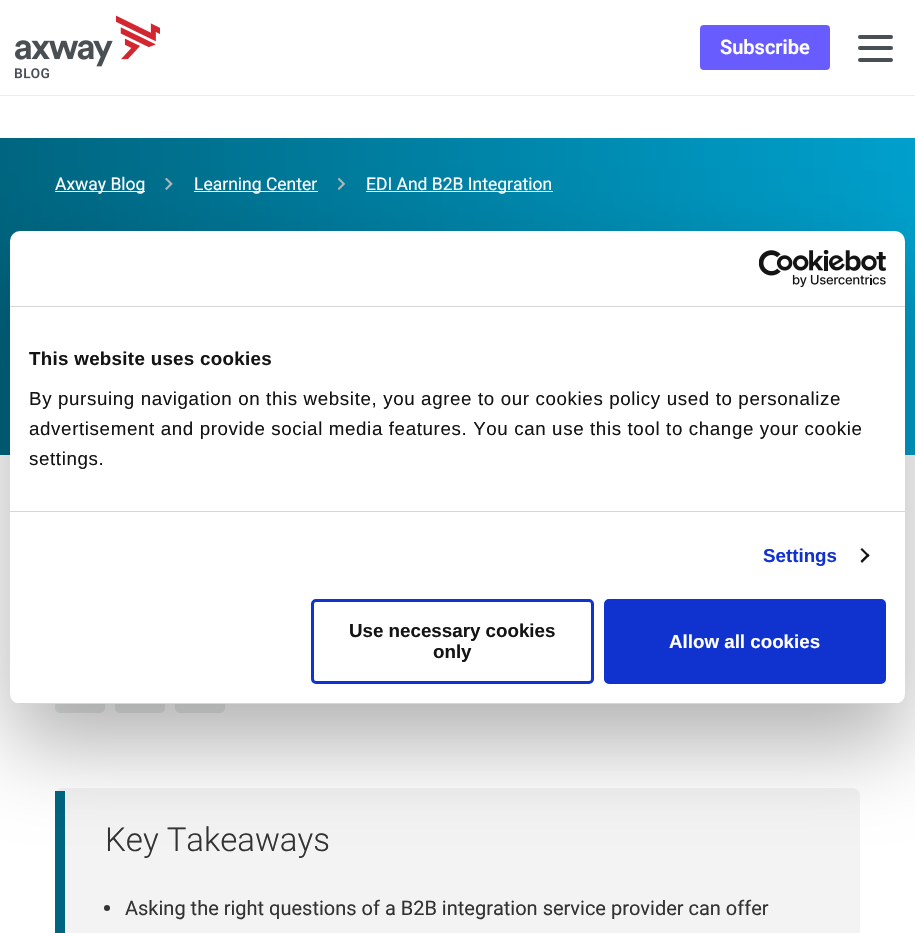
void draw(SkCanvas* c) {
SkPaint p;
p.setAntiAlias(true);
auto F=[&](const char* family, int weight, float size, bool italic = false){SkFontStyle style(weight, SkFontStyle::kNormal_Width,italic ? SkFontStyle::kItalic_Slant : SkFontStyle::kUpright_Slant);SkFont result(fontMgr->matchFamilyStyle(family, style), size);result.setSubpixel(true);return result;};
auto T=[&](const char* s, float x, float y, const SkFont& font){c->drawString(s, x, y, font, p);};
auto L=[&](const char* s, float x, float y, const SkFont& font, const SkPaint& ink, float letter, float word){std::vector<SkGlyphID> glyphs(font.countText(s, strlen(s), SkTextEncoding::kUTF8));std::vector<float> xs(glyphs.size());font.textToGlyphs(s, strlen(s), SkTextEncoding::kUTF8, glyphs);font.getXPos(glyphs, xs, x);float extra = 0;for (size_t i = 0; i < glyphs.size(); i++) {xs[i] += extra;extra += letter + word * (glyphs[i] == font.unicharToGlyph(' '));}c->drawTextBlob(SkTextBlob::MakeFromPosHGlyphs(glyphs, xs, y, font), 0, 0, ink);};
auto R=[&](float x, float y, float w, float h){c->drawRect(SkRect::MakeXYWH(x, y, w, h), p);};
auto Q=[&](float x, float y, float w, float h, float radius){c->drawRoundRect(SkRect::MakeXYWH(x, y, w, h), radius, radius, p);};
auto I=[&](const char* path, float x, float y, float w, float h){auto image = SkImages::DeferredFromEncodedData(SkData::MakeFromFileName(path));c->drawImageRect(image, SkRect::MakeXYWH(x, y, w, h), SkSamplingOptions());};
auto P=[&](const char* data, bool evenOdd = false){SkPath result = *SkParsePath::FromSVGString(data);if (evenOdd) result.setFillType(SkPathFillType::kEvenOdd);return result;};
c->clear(0xffffffff);
p.setColor(0xffebecec);
R(0,95,915,1);
I("1.png",15,15,145,64);
p.setColor(0xff695cff);
Q(700,25,130,45,4);
auto f1 = F("Roboto",600,20);
p.setColor(0xffffffff);
T("Subscribe",720,54,f1);
p.setColor(0xff4a4f54);
Q(858,35,35,4,2);
Q(858,46,35,4,2);
Q(858,58,35,4,2);
{
const SkColor colors[] = {0xff006580,0xff00a0cc};
const float stops[] = {0,1};
const SkPoint ends[] = {{0,296}, {915,296}};
p.setShader(SkGradientShader::MakeLinear(ends, colors, stops, 2, SkTileMode::kClamp));
p.setAlpha(255);
}
R(0,138,915,317);
p.setShader(nullptr);
p.setColor(0xffffffff);
R(55,191,90,1);
auto f2 = F("Roboto",400,17.5);
T("Axway Blog",55,190,f2);
I("2.png",165,178,8,12);
R(194,191,124,1);
T("Learning Center",194,190,f2);
I("3.png",338,178,8,12);
R(366,191,187,1);
T("EDI And B2B Integration",366,190,f2);
I("5.png",55,704,50,9);
p.setColor(0xffebecec);
Q(115,663,50,50,5);
I("5.png",175,704,50,9);
p.setColor(0xfff3f3f3);
Q(55,788,805,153,8);
p.setColor(0xff006580);
R(55,791,10,142);
p.setColor(0x4d000000);
p.setMaskFilter(SkMaskFilter::MakeBlur(kNormal_SkBlurStyle, 42.5));
c->drawRoundRect(SkRect::MakeXYWH(10,271,895,473),10,10,p);
p.setMaskFilter(nullptr);
p.setColor(0xffffffff);
Q(10,231,895,473,10);
p.setColor(0xffd6d6d6);
R(10,306,895,1);
I("4.png",759,250,127,38);
R(10,511,895,1);
auto f3 = F("Liberation Sans",700,18.75);
p.setColor(0xff141414);
L("This website uses cookies",29,365,f3,p,.3,0);
auto f4 = F("Liberation Sans",400,18.75);
L("By pursuing navigation on this website, you agree to our cookies policy used to personalize",29,405,f4,p,.62,0);
L("advertisement and provide social media features. You can use this tool to change your cookie",29,435,f4,p,.62,0);
L("settings.",29,465,f4,p,.62,0);
p.setColor(0xff1032cf);
T("Settings",763,562,f3);
p.setColor(0xff141414);
c->drawPath(P("M862 548l7.5 7.5l-1.5 1.5l-7.5-7.5z"),p);
c->drawPath(P("M868 553.5l1.5 2l-7.5 7.5l-1.5-2z"),p);
c->save();
c->clipPath(P("M20 231h875c5.5 0 10 4.5 10 10v453c0 5.5-4.5 10-10 10h-875c-5.5 0-10-4.5-10-10v-453c0-5.5 4.5-10 10-10z"),true);
p.setColor(0xffd6d6d6);
R(10,703,895,1);
c->restore();
p.setStroke(true);
p.setStrokeWidth(3);
p.setColor(0xff1032cf);
c->drawRoundRect(SkRect::MakeXYWH(312.5,600.5,280,82),3.5,3.5,p);
p.setStroke(false);
p.setColor(0xff141414);
T("Use necessary cookies",349,637,f3);
T("only",433,658,f3);
p.setColor(0xff1032cf);
c->drawRoundRect(SkRect::MakeXYWH(605.5,600.5,279,82),3.5,3.5,p);
p.setStroke(true);
c->drawRoundRect(SkRect::MakeXYWH(605.5,600.5,279,82),3.5,3.5,p);
p.setStroke(false);
p.setColor(0xffffffff);
T("Allow all cookies",669,648,f3);
auto f5 = F("Roboto",300,33);
p.setColor(0xff333333);
T("Key Takeaways",105,851,f5);
c->drawCircle(107,908,3,p);
auto f6 = F("Roboto",400,20);
T("Asking the right questions of a B2B integration service provider can offer",125,915,f6);
}
